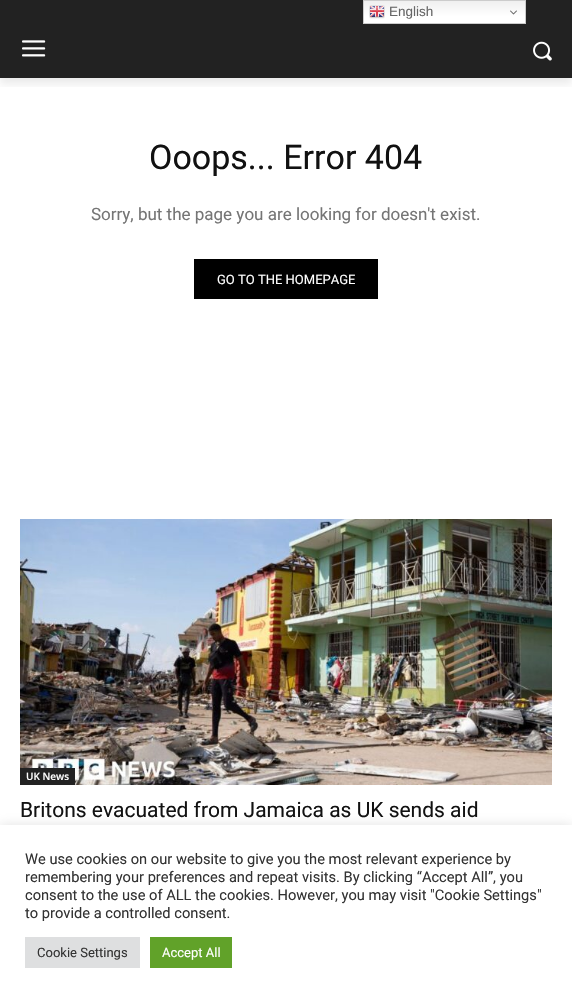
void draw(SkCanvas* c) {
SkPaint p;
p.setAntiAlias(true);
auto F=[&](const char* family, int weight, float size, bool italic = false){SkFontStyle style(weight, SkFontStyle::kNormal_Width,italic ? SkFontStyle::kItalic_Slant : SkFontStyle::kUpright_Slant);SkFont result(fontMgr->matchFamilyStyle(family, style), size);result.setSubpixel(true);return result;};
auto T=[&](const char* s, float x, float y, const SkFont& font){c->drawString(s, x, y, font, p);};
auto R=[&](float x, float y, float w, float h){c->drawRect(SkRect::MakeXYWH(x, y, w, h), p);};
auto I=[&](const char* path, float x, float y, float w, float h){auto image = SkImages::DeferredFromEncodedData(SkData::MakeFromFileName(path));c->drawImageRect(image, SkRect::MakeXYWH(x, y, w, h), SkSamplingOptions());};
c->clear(0xffffffff);
p.setColor(0xff222222);
R(0,0,572,78);
I("3.png",22,40,24,17);
I("4.png",533,41,19,20);
c->save();
c->clipRect(SkRect::MakeXYWH(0,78,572,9));
p.setColor(0x14000000);
p.setMaskFilter(SkMaskFilter::MakeBlur(kNormal_SkBlurStyle, 4));
c->drawRect(SkRect::MakeXYWH(0,6,572,78),p);
p.setMaskFilter(nullptr);
c->restore();
{
const SkColor colors[] = {0xffefefef,0xffffffff};
const float stops[] = {0,.7};
const SkPoint ends[] = {{445,0}, {445,24}};
p.setShader(SkGradientShader::MakeLinear(ends, colors, stops, 2, SkTileMode::kClamp));
p.setAlpha(255);
}
R(364,1,161,22);
p.setStroke(true);
p.setStrokeWidth(1);
p.setShader(nullptr);
p.setColor(0xffcccccc);
c->drawRect(SkRect::MakeXYWH(363.5,.5,162,23),p);
I("1.png",369,5,16,14);
auto f1 = F("Liberation Sans",400,13.5);
p.setStroke(false);
p.setColor(0xff666666);
T("English",389,16,f1);
I("2.png",510,10,7,5);
auto f2 = F("Roboto",400,34);
p.setColor(0xff111111);
T("Ooops... Error 404",149,169,f2);
auto f3 = F("Roboto",400,17);
p.setColor(0xff757575);
T("Sorry, but the page you are looking for doesn't exist.",91,220,f3);
p.setColor(0xff000000);
R(194,259,184,40);
auto f4 = F("Roboto",400,13);
p.setColor(0xffffffff);
T("GO TO THE HOMEPAGE",217,284,f4);
I("5.png",20,519,532,266);
p.setColor(0xff222222);
R(20,768,55,17);
auto f5 = F("Open Sans",600,10);
p.setColor(0xffffffff);
T("UK News",26,780,f5);
auto f6 = F("Roboto",400,21);
p.setColor(0xff111111);
T("Britons evacuated from Jamaica as UK sends aid",20,817,f6);
p.setColor(0x4dacabab);
p.setMaskFilter(SkMaskFilter::MakeBlur(kNormal_SkBlurStyle, 5));
c->drawRect(SkRect::MakeXYWH(0,824,572,173),p);
p.setMaskFilter(nullptr);
p.setColor(0xffffffff);
R(0,825,572,173);
auto f7 = F("Roboto",400,14.65);
p.setColor(0xff333333);
T("We use cookies on our website to give you the most relevant experience by",25,864,f7);
T("remembering your preferences and repeat visits. By clicking “Accept All”, you",25,882,f7);
T("consent to the use of ALL the cookies. However, you may visit \"Cookie Settings\"",25,900,f7);
T("to provide a controlled consent.",25,918,f7);
p.setColor(0xffdedfe0);
R(25,937,115,31);
p.setColor(0xff333333);
T("Cookie Settings",37,957,f4);
p.setColor(0xff61a229);
R(150,937,82,31);
p.setColor(0xffffffff);
T("Accept All",162,957,f4);
}
